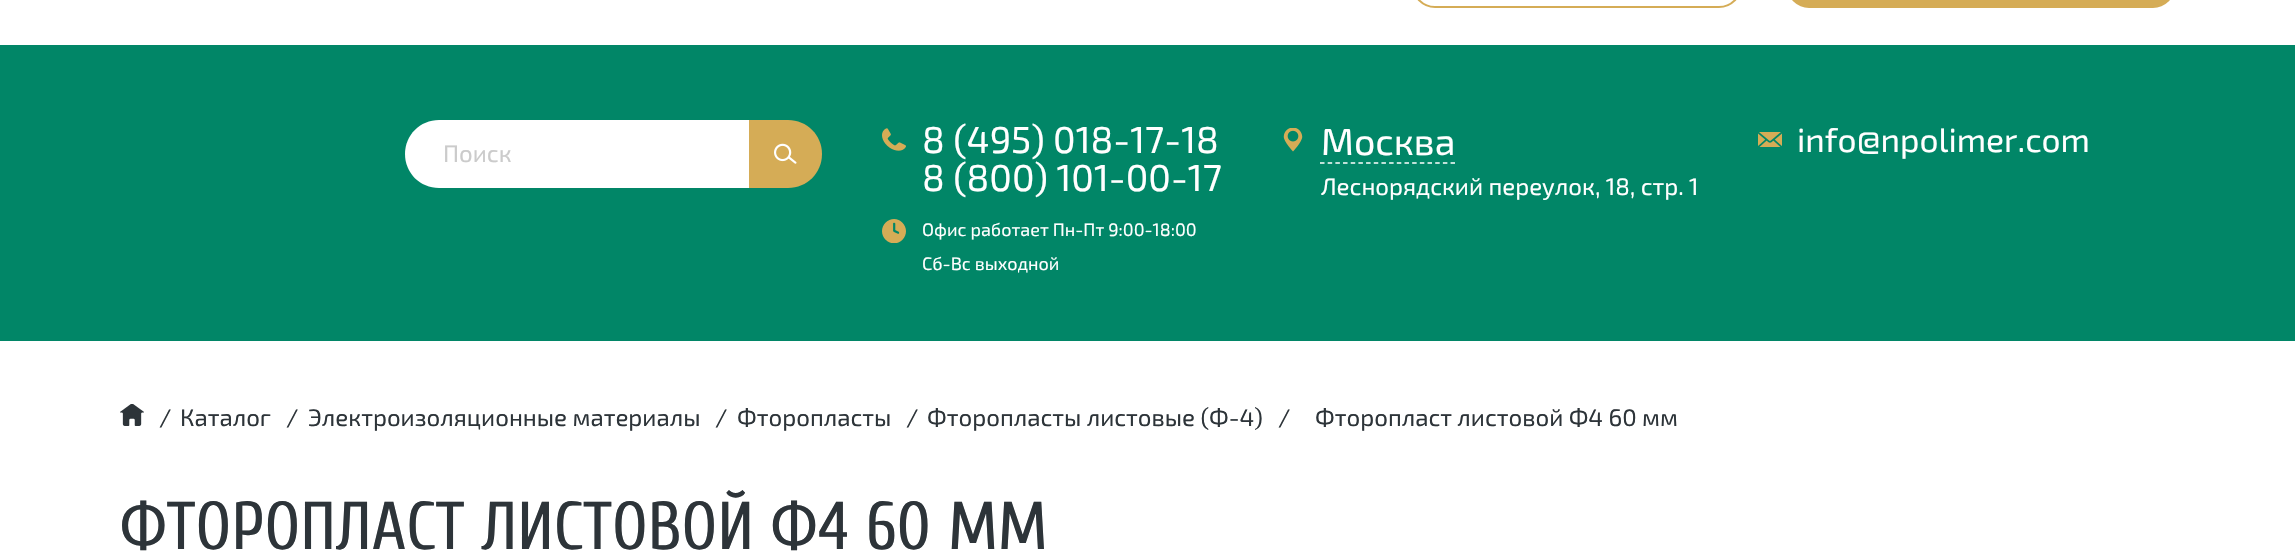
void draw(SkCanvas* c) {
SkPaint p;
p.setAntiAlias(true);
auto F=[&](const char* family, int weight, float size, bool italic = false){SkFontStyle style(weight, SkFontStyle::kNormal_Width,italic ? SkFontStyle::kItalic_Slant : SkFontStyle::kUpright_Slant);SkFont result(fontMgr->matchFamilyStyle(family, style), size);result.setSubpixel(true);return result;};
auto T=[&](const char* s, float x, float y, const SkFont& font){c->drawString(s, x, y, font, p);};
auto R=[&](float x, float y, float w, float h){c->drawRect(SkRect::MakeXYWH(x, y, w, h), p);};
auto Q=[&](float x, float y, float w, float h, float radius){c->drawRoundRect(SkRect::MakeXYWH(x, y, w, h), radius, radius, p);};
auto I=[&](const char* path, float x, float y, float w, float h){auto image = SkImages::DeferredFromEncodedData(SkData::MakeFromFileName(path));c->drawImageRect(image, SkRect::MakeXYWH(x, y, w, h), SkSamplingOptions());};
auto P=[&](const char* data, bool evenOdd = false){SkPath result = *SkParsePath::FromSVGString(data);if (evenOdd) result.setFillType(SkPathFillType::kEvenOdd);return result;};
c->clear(0xffffffff);
p.setStroke(true);
p.setStrokeWidth(2);
p.setColor(0xffd5ac56);
c->drawRoundRect(SkRect::MakeXYWH(1413,-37,328,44),35,35,p);
p.setStroke(false);
Q(1787,-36,388,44,36);
p.setColor(0xff018667);
R(0,45,2295,296);
p.setColor(0xffffffff);
c->drawPath(P("M439 120h310v68h-310c-19 0-34-15-34-34c0-19 15-34 34-34z"),p);
auto f1 = F("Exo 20",400,24);
p.setColor(0xffcbcbcb);
T("Поиск",443,162,f1);
p.setColor(0xffd5ac56);
c->drawPath(P("M749 120h39c19 0 34 15 34 34c0 19-15 34-34 34h-39z"),p);
I("1.png",774,143,23,21);
I("2.png",882,128,24,23);
auto f2 = F("Exo 20",400,37.5);
p.setColor(0xffffffff);
T("8 (495) 018-17-18",922,153,f2);
T("8 (800) 101-00-17",922,191,f2);
I("3.png",882,219,24,24);
auto f3 = F("Exo 20",400,18);
T("Офис работает Пн-Пт 9:00-18:00",922,236,f3);
T("Сб-Вс выходной",922,270,f3);
I("4.png",1283,128,20,24);
T("Москва",1321,155,f2);
p.setStroke(true);
p.setStrokeWidth(1.5);
p.setPathEffect(SkDashPathEffect::Make({{4.5f,3.18f}}, 0));
c->drawPath(P("M1320 163h135"),p);
p.setPathEffect(nullptr);
p.setStroke(false);
T("Леснорядский переулок, 18, стр. 1",1321,195,f1);
I("5.png",1758,132,24,15);
auto f4 = F("Exo 20",400,33.5);
T("info@npolimer.com",1797,152,f4);
I("6.png",120,404,24,22);
p.setColor(0xff2d3439);
T("/",159,426,f1);
T("Каталог",180,426,f1);
T("/",286,426,f1);
T("Электроизоляционные материалы",308,426,f1);
T("/",715,426,f1);
T("Фторопласты",737,426,f1);
T("/",906,426,f1);
T("Фторопласты листовые (Ф-4)",927,426,f1);
T("/",1278,426,f1);
T("Фторопласт листовой Ф4 60 мм",1315,426,f1);
auto f5 = F("Cuprum",400,67.5);
T("ФТОРОПЛАСТ ЛИСТОВОЙ Ф4 60 ММ",120,549,f5);
}
